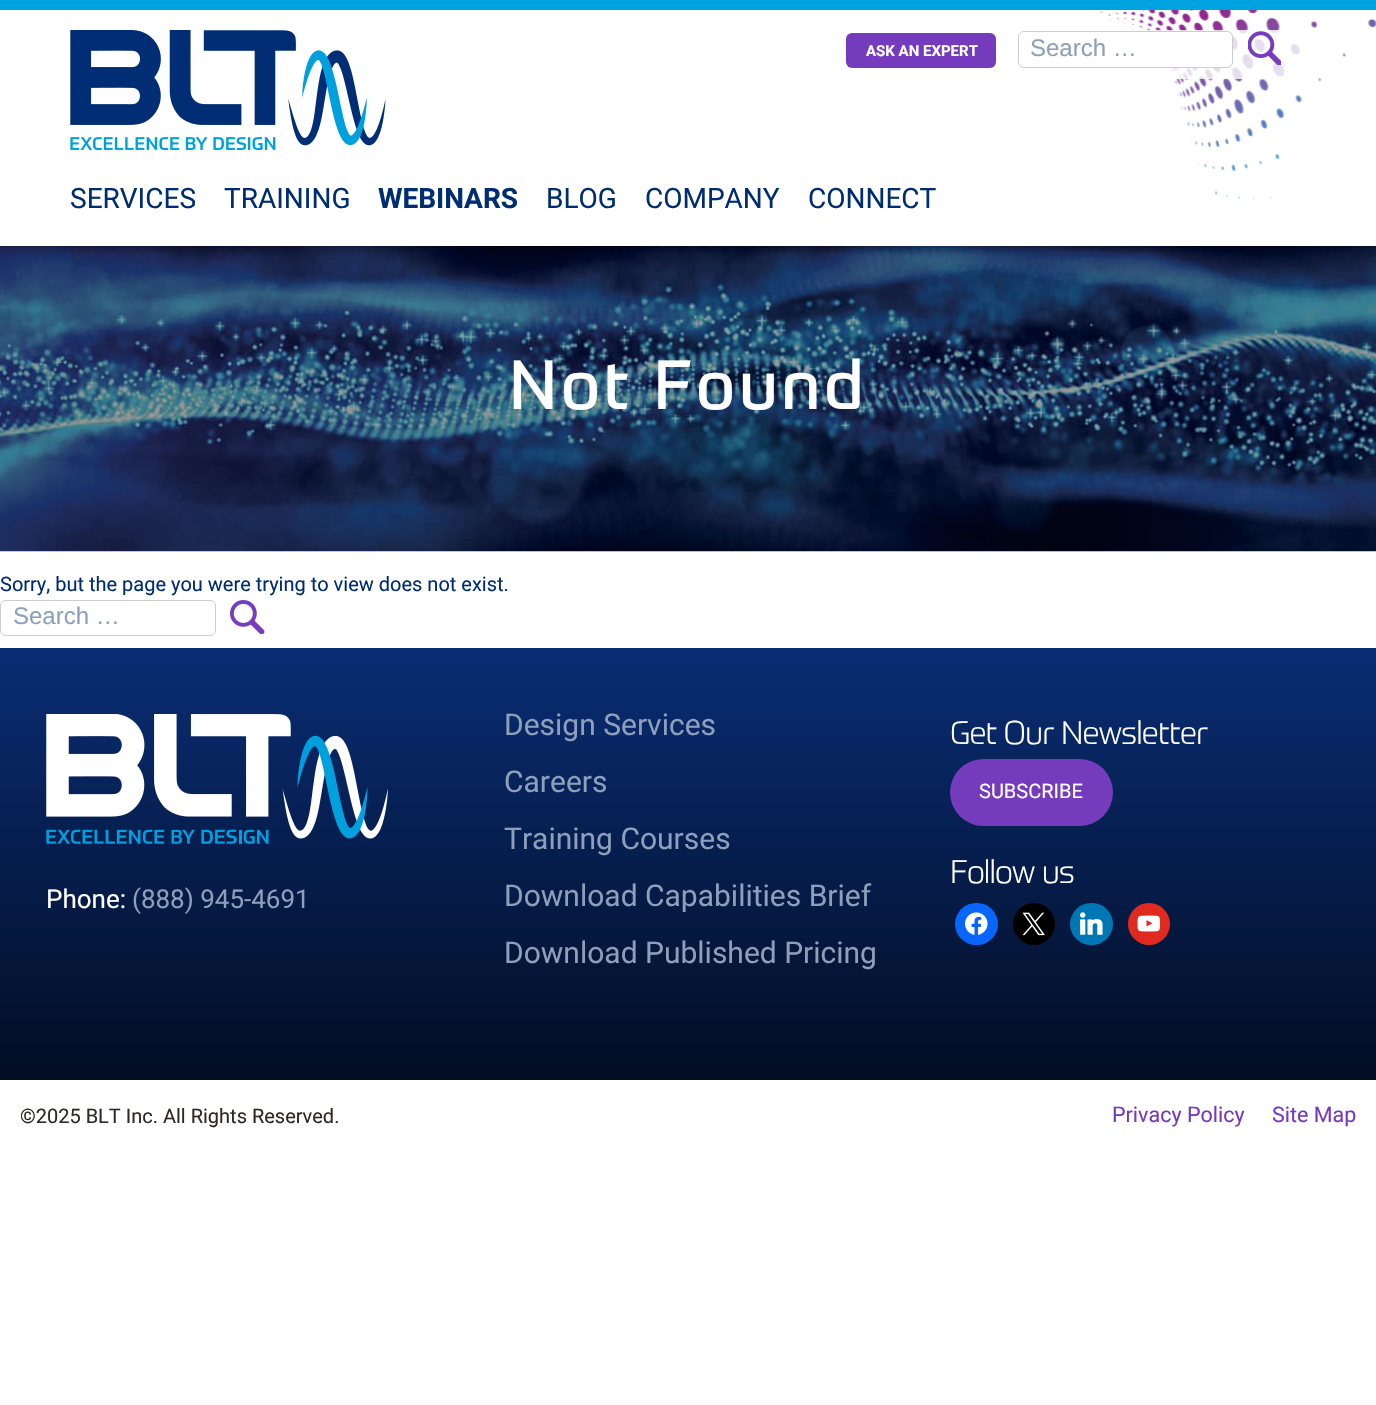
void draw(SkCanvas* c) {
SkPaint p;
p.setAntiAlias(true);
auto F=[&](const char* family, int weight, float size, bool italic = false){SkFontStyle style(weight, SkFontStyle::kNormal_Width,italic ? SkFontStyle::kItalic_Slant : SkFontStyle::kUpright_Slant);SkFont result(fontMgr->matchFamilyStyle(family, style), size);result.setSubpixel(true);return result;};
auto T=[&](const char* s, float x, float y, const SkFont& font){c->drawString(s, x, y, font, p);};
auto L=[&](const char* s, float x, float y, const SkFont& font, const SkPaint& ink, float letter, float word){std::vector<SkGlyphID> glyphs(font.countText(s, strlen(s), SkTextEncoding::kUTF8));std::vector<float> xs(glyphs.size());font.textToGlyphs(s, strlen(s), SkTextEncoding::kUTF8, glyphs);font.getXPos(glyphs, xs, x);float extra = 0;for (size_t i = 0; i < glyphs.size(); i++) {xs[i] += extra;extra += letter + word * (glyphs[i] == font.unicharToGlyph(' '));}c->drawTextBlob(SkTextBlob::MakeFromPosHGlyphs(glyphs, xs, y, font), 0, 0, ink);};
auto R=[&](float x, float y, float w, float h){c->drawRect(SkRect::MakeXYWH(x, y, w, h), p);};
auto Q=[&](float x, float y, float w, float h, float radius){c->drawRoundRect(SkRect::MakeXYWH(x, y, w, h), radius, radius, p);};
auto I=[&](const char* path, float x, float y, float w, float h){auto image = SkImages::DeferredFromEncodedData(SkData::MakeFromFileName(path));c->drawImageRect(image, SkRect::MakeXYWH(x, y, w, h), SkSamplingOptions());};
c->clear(0xffffffff);
I("4.png",0,246,1376,306);
p.setColor(0x33000000);
p.setMaskFilter(SkMaskFilter::MakeBlur(kNormal_SkBlurStyle, 3));
c->drawRect(SkRect::MakeXYWH(0,4,1376,246),p);
p.setMaskFilter(nullptr);
p.setColor(0xffffffff);
R(0,10,1376,236);
p.setColor(0xff00a3e0);
R(0,0,1376,10);
I("1.png",1092,10,284,190);
I("2.png",70,30,316,120);
p.setColor(0xff753bbd);
Q(846,33,150,35,6);
auto f1 = F("Roboto",700,15);
p.setColor(0xffffffff);
T("ASK AN EXPERT",866,56,f1);
p.setColor(0xccffffff);
R(1132,30,169,49);
p.setColor(0xffffffff);
c->drawRoundRect(SkRect::MakeXYWH(1018.5,31.5,214,36),5.5,5.5,p);
p.setStroke(true);
p.setStrokeWidth(1);
p.setColor(0xffcccccc);
c->drawRoundRect(SkRect::MakeXYWH(1018.5,31.5,214,36),5.5,5.5,p);
auto f2 = F("Liberation Sans",400,24);
p.setStroke(false);
p.setColor(0xff8e9fbc);
T("Search …",1030,56,f2);
I("3.png",1248,31,33,34);
auto f3 = F("Roboto",400,28);
p.setColor(0xff002d72);
T("SERVICES",70,208,f3);
T("TRAINING",224,208,f3);
auto f4 = F("Roboto",700,28);
T("WEBINARS",378,208,f4);
T("BLOG",546,208,f3);
T("COMPANY",645,208,f3);
T("CONNECT",808,208,f3);
auto f5 = F("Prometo",400,68);
p.setColor(0xffffffff);
L("Not Found",509,409,f5,p,3.75,0);
auto f6 = F("Roboto",400,20);
p.setColor(0xff002d72);
T("Sorry, but the page you were trying to view does not exist.",0,591,f6);
p.setStroke(true);
p.setColor(0xffcccccc);
c->drawRoundRect(SkRect::MakeXYWH(.5,600.5,215,35),5.5,5.5,p);
p.setStroke(false);
p.setColor(0xff8e9fbc);
T("Search …",13,624,f2);
I("5.png",230,600,35,34);
{
const SkColor colors[] = {0xff092d74,0xff030d23};
const float stops[] = {0,1};
const SkPoint ends[] = {{688,648}, {688,1080}};
p.setShader(SkGradientShader::MakeLinear(ends, colors, stops, 2, SkTileMode::kClamp));
p.setAlpha(255);
}
R(0,648,1376,432);
auto f7 = F("Roboto",400,30);
p.setShader(nullptr);
p.setColor(0xff8e9fbc);
T("Design Services",504,735,f7);
T("Careers",504,792,f7);
T("Training Courses",504,849,f7);
T("Download Capabilities Brief",504,906,f7);
T("Download Published Pricing",504,963,f7);
auto f8 = F("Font",300,32);
p.setColor(0xffffffff);
L("Get Our Newsletter",950,744,f8,p,-.9,0);
p.setColor(0xff753bbd);
Q(950,759,163,67,33.5);
p.setColor(0xffffffff);
T("SUBSCRIBE",979,798,f6);
L("Follow us",950,883,f8,p,-.9,0);
p.setColor(0xff0866ff);
Q(955,903,43,42,21);
I("6.png",965,912,23,23);
p.setColor(0xff000000);
c->drawCircle(1034,924,21,p);
I("7.png",1022,912,23,24);
p.setColor(0xff0077b5);
Q(1070,903,43,42,21);
I("8.png",1080,912,23,23);
p.setColor(0xffe02a20);
c->drawCircle(1149,924,21,p);
I("9.png",1137,915,24,17);
I("10.png",46,714,342,130);
auto f9 = F("Roboto",400,26);
p.setColor(0xffffffff);
T("Phone:",46,908,f9);
p.setColor(0xff8e9fbc);
T("(888) 945-4691",132,908,f9);
p.setColor(0xff2d2926);
T("©2025 BLT Inc. All Rights Reserved.",20,1123,f6);
auto f10 = F("Roboto",400,21.5);
p.setColor(0xff753bbd);
T("Privacy Policy",1112,1122,f10);
T("Site Map",1272,1122,f10);
}
